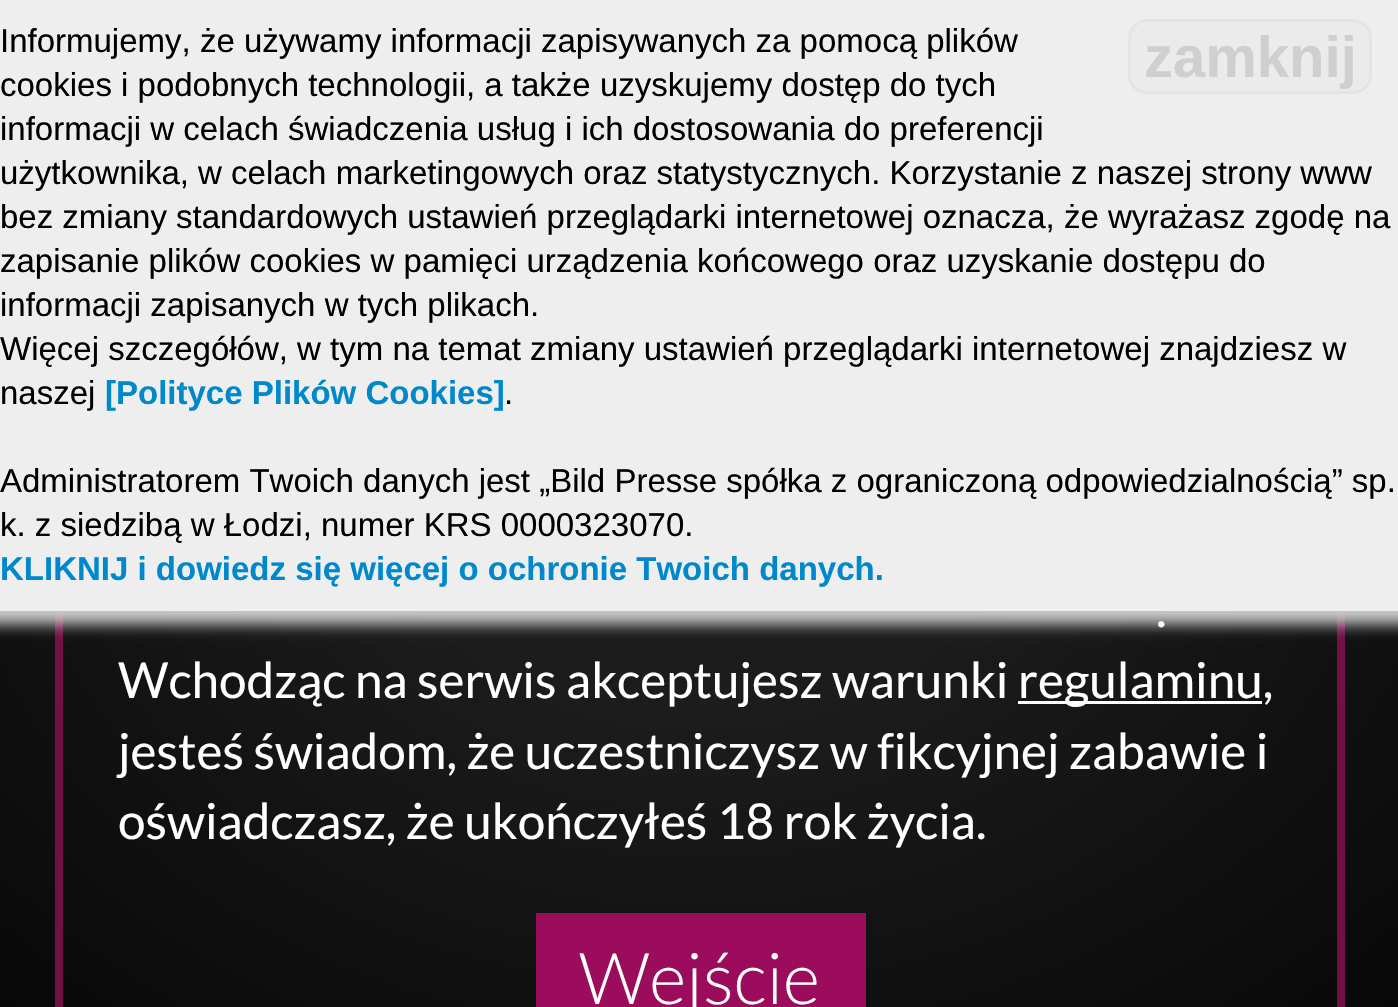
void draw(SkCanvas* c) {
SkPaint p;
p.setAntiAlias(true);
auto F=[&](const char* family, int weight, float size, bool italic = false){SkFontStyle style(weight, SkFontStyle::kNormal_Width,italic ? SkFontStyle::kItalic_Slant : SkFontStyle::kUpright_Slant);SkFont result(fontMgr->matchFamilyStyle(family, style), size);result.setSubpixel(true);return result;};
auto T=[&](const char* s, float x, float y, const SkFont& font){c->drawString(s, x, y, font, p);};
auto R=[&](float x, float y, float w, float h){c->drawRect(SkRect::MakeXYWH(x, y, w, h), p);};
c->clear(0xffffffff);
{
const SkColor colors[] = {0xff1c1c1c,0xff080808};
const float stops[] = {.3,1};
SkMatrix m = SkMatrix::Translate(700,505).preScale(990,714);
p.setShader(SkGradientShader::MakeRadial({0, 0}, 1, colors, stops, 2, SkTileMode::kClamp, 0, &m));
p.setAlpha(255);
}
R(0,611,1398,396);
p.setStroke(true);
p.setStrokeWidth(8);
p.setShader(nullptr);
p.setColor(0xff720f46);
c->drawRect(SkRect::MakeXYWH(59,114,1282,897),p);
p.setStroke(false);
p.setColor(0xffcccccc);
p.setMaskFilter(SkMaskFilter::MakeBlur(kNormal_SkBlurStyle, 7));
c->drawRect(SkRect::MakeXYWH(-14,-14,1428,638),p);
p.setMaskFilter(nullptr);
p.setColor(0xffeeeeee);
R(0,0,1398,611);
auto f1 = F("Liberation Sans",400,33);
p.setColor(0xff000000);
T("Informujemy, że używamy informacji zapisywanych za pomocą plików",0,52,f1);
T("cookies i podobnych technologii, a także uzyskujemy dostęp do tych",0,96,f1);
T("informacji w celach świadczenia usług i ich dostosowania do preferencji",0,140,f1);
T("użytkownika, w celach marketingowych oraz statystycznych. Korzystanie z naszej strony www",0,184,f1);
T("bez zmiany standardowych ustawień przeglądarki internetowej oznacza, że wyrażasz zgodę na",0,228,f1);
T("zapisanie plików cookies w pamięci urządzenia końcowego oraz uzyskanie dostępu do",0,272,f1);
T("informacji zapisanych w tych plikach.",0,316,f1);
T("Więcej szczegółów, w tym na temat zmiany ustawień przeglądarki internetowej znajdziesz w",0,360,f1);
T("naszej",0,404,f1);
auto f2 = F("Liberation Sans",700,33);
p.setColor(0xff0088cc);
T("[Polityce Plików Cookies]",105,404,f2);
p.setColor(0xff000000);
T(".",504,404,f1);
T("Administratorem Twoich danych jest „Bild Presse spółka z ograniczoną odpowiedzialnością” sp.",0,492,f1);
T("k. z siedzibą w Łodzi, numer KRS 0000323070.",0,536,f1);
p.setColor(0xff0088cc);
T("KLIKNIJ i dowiedz się więcej o ochronie Twoich danych.",0,580,f2);
p.setColor(0xffebebeb);
c->drawRoundRect(SkRect::MakeXYWH(1129.5,20.5,241,72),17.5,17.5,p);
p.setStroke(true);
p.setStrokeWidth(3);
p.setColor(0xffe4e4e4);
c->drawRoundRect(SkRect::MakeXYWH(1129.5,20.5,241,72),17.5,17.5,p);
auto f3 = F("Liberation Sans",700,58);
p.setStroke(false);
p.setColor(0xffcfcfcf);
T("zamknij",1144,77,f3);
auto f4 = F("Lato",400,49.5);
p.setColor(0xffffffff);
T(".",1156,627,f4);
T("Wchodząc na serwis akceptujesz warunki",118,698,f4);
R(1018,701,244,3);
T("regulaminu,",1018,698,f4);
T("jesteś świadom, że uczestniczysz w fikcyjnej zabawie i",118,769,f4);
T("oświadczasz, że ukończyłeś 18 rok życia.",118,839,f4);
p.setColor(0xff9b0c5c);
R(536,913,330,94);
auto f5 = F("Lato",300,71.5);
p.setColor(0xffffffff);
T("Wejście",579,1004,f5);
}
